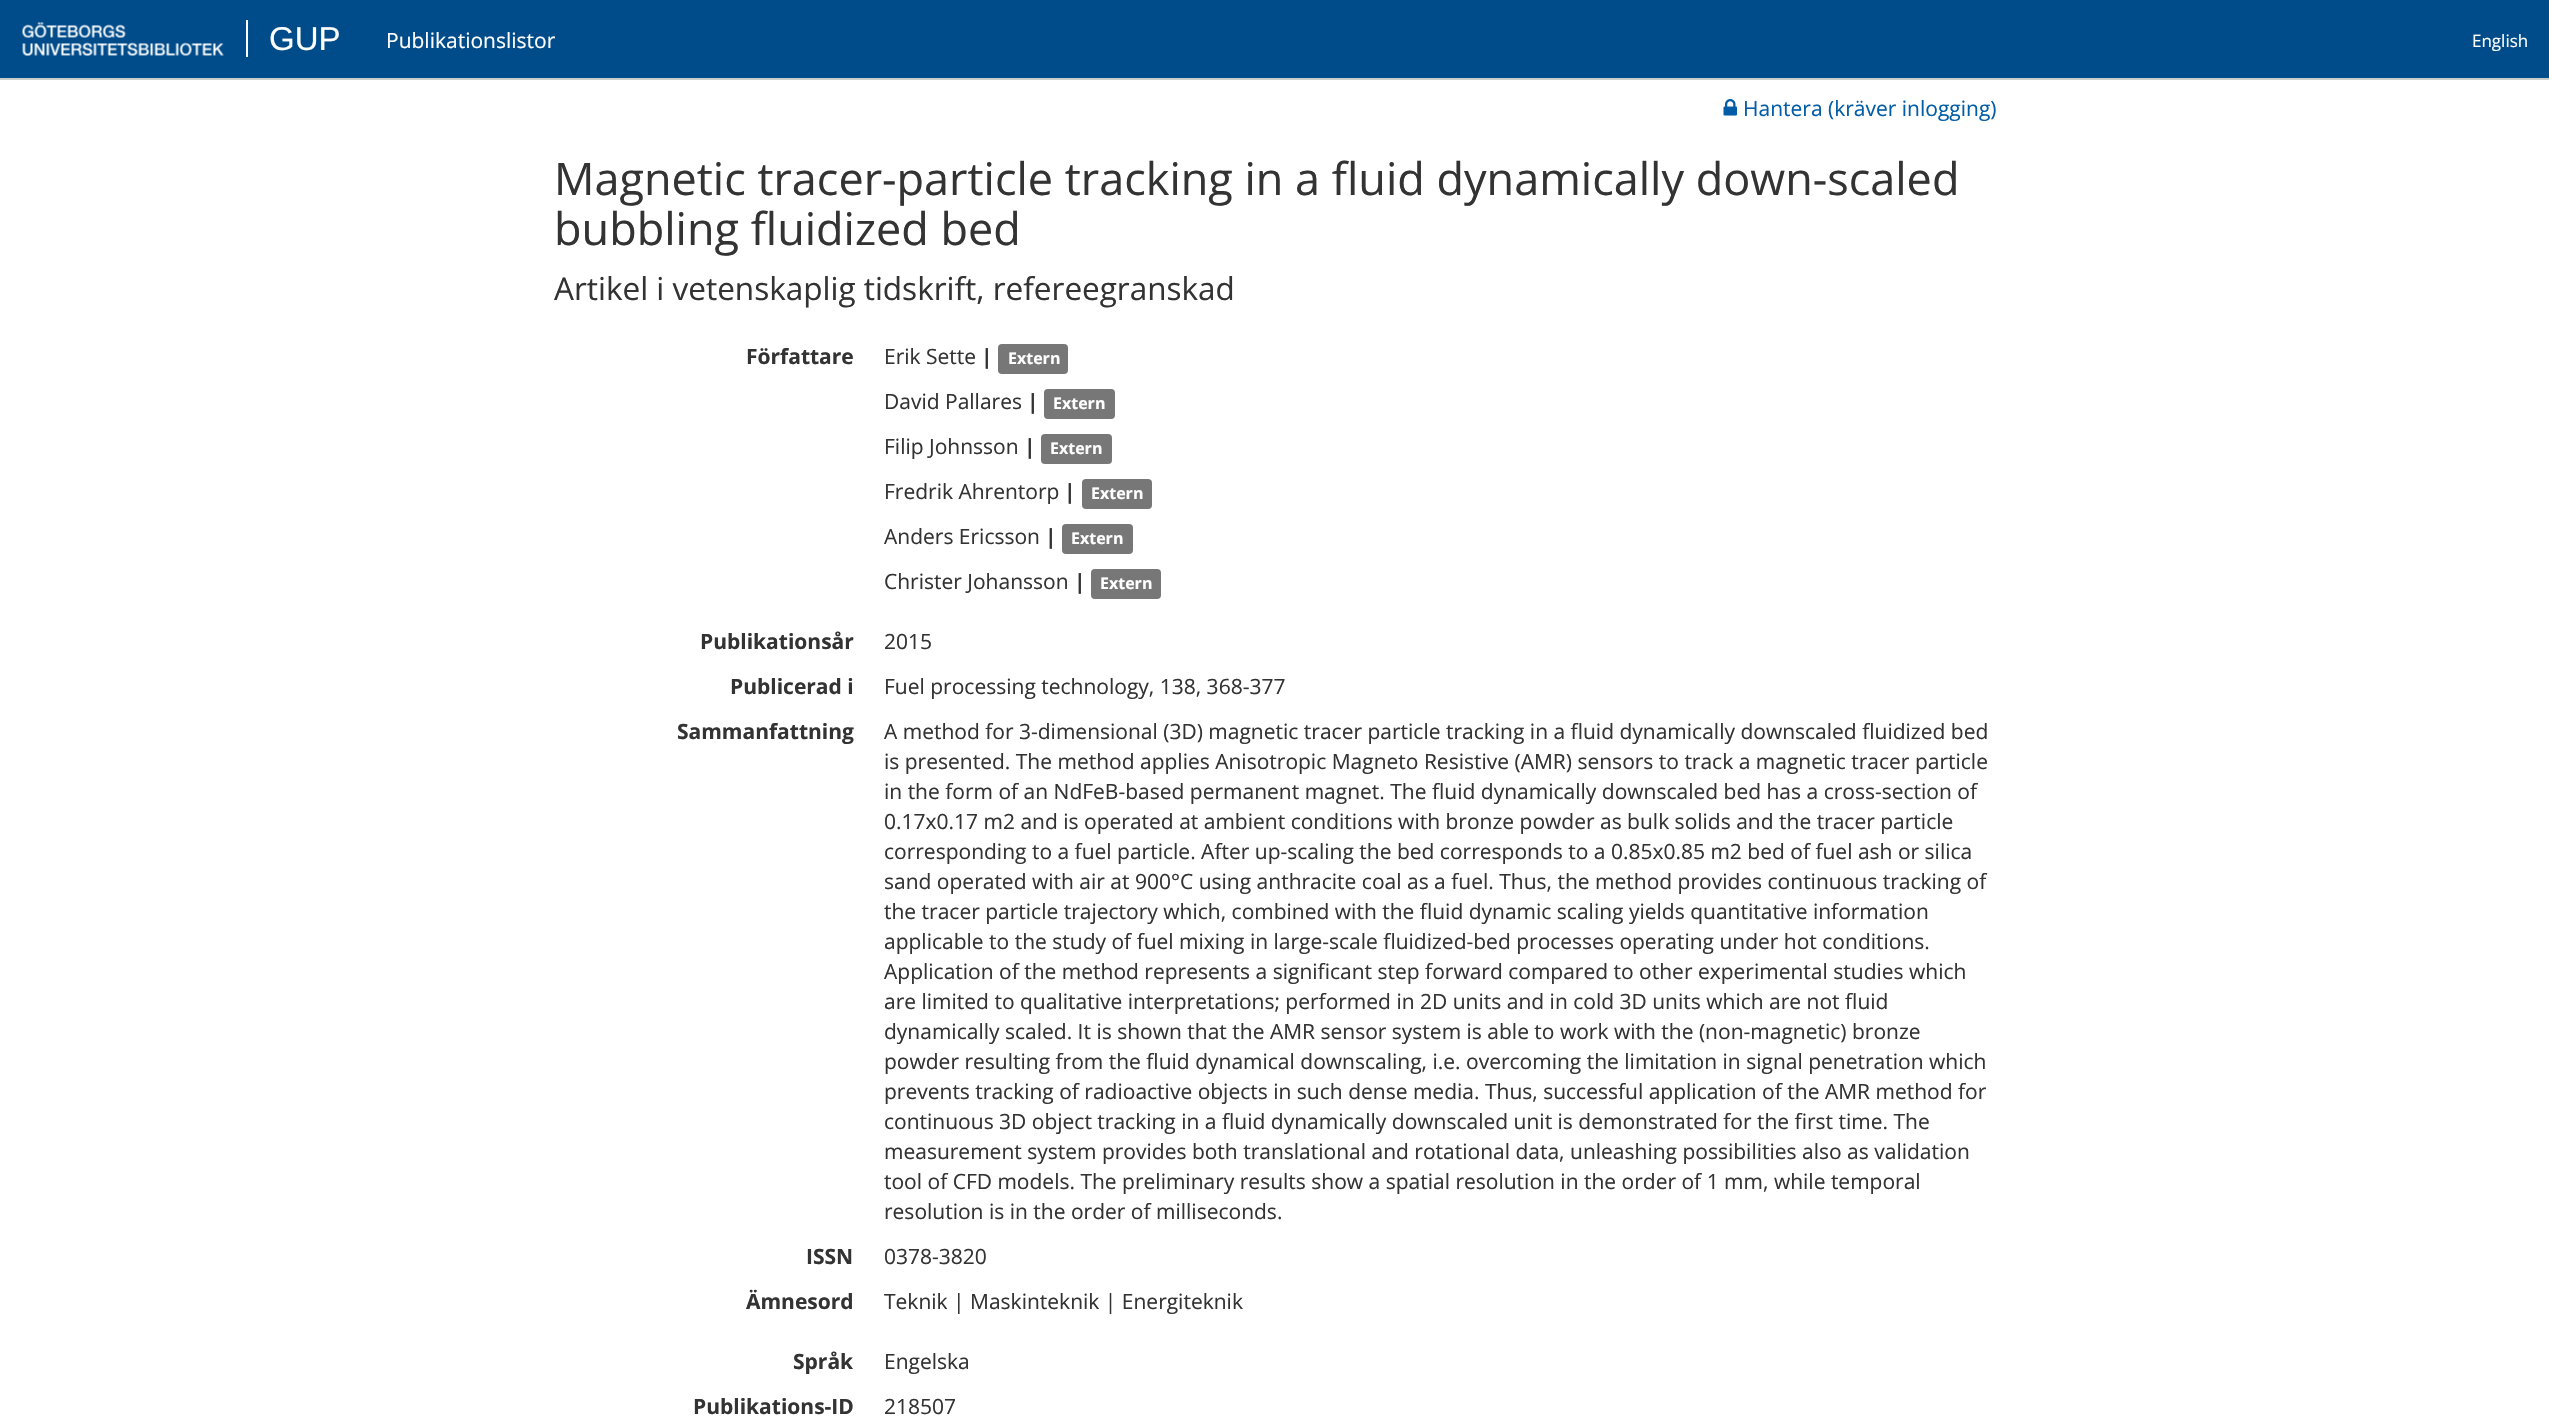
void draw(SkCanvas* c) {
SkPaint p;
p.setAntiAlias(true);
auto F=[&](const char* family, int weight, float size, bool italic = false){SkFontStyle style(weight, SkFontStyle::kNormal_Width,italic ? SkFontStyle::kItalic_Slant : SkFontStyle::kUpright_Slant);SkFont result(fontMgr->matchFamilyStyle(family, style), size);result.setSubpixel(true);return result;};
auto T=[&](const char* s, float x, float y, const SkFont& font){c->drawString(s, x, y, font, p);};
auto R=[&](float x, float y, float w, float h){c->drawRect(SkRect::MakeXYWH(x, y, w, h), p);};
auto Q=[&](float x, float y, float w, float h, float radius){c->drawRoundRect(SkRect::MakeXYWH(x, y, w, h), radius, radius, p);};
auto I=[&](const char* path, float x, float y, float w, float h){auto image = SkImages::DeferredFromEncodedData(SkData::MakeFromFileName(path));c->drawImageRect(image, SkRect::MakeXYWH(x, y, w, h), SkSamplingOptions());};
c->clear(0xffffffff);
p.setColor(0xff004b89);
R(0,0,2549,78);
p.setColor(0xffcccccc);
R(0,78,2549,2);
I("1.png",22,22,202,34);
p.setColor(0xffffffff);
R(246,20,2,37);
auto f1 = F("Liberation Sans",400,33);
T("GUP",269,50,f1);
auto f2 = F("Open Sans",400,21);
T("Publikationslistor",386,48,f2);
auto f3 = F("Open Sans",400,17);
T("English",2472,47,f3);
I("2.png",1723,99,14,17);
p.setColor(0xff025da6);
T("Hantera (kräver inlogging)",1743,116,f2);
auto f4 = F("Open Sans",400,45);
p.setColor(0xff333333);
T("Magnetic tracer-particle tracking in a fluid dynamically down-scaled",554,195,f4);
T("bubbling fluidized bed",554,245,f4);
auto f5 = F("Open Sans",400,31.5);
T("Artikel i vetenskaplig tidskrift, refereegranskad",554,300,f5);
auto f6 = F("Open Sans",700,21);
T("Författare",746,364,f6);
T("Erik Sette",884,364,f2);
T("|",981,364,f6);
p.setColor(0xff777777);
Q(998,344,70,30,4);
auto f7 = F("Open Sans",700,16);
p.setColor(0xffffffff);
T("Extern",1008,364,f7);
p.setColor(0xff333333);
T("David Pallares",884,409,f2);
T("|",1027,409,f6);
p.setColor(0xff777777);
Q(1044,389,71,30,4);
p.setColor(0xffffffff);
T("Extern",1053,409,f7);
p.setColor(0xff333333);
T("Filip Johnsson",884,454,f2);
T("|",1024,454,f6);
p.setColor(0xff777777);
Q(1041,434,71,30,4);
p.setColor(0xffffffff);
T("Extern",1050,454,f7);
p.setColor(0xff333333);
T("Fredrik Ahrentorp",884,499,f2);
T("|",1064,499,f6);
p.setColor(0xff777777);
Q(1082,479,70,30,4);
p.setColor(0xffffffff);
T("Extern",1091,499,f7);
p.setColor(0xff333333);
T("Anders Ericsson",884,544,f2);
T("|",1045,544,f6);
p.setColor(0xff777777);
Q(1062,524,71,30,4);
p.setColor(0xffffffff);
T("Extern",1071,544,f7);
p.setColor(0xff333333);
T("Christer Johansson",884,589,f2);
T("|",1074,589,f6);
p.setColor(0xff777777);
Q(1091,569,70,30,4);
p.setColor(0xffffffff);
T("Extern",1100,589,f7);
p.setColor(0xff333333);
T("Publikationsår",700,649,f6);
T("2015",884,649,f2);
T("Publicerad i",730,694,f6);
T("Fuel processing technology, 138, 368-377",884,694,f2);
T("Sammanfattning",677,739,f6);
T("A method for 3-dimensional (3D) magnetic tracer particle tracking in a fluid dynamically downscaled fluidized bed",884,739,f2);
T("is presented. The method applies Anisotropic Magneto Resistive (AMR) sensors to track a magnetic tracer particle",884,769,f2);
T("in the form of an NdFeB-based permanent magnet. The fluid dynamically downscaled bed has a cross-section of",884,799,f2);
T("0.17x0.17 m2 and is operated at ambient conditions with bronze powder as bulk solids and the tracer particle",884,829,f2);
T("corresponding to a fuel particle. After up-scaling the bed corresponds to a 0.85x0.85 m2 bed of fuel ash or silica",884,859,f2);
T("sand operated with air at 900°C using anthracite coal as a fuel. Thus, the method provides continuous tracking of",884,889,f2);
T("the tracer particle trajectory which, combined with the fluid dynamic scaling yields quantitative information",884,919,f2);
T("applicable to the study of fuel mixing in large-scale fluidized-bed processes operating under hot conditions.",884,949,f2);
T("Application of the method represents a significant step forward compared to other experimental studies which",884,979,f2);
T("are limited to qualitative interpretations; performed in 2D units and in cold 3D units which are not fluid",884,1009,f2);
T("dynamically scaled. It is shown that the AMR sensor system is able to work with the (non-magnetic) bronze",884,1039,f2);
T("powder resulting from the fluid dynamical downscaling, i.e. overcoming the limitation in signal penetration which",884,1069,f2);
T("prevents tracking of radioactive objects in such dense media. Thus, successful application of the AMR method for",884,1099,f2);
T("continuous 3D object tracking in a fluid dynamically downscaled unit is demonstrated for the first time. The",884,1129,f2);
T("measurement system provides both translational and rotational data, unleashing possibilities also as validation",884,1159,f2);
T("tool of CFD models. The preliminary results show a spatial resolution in the order of 1 mm, while temporal",884,1189,f2);
T("resolution is in the order of milliseconds.",884,1219,f2);
T("ISSN",806,1264,f6);
T("0378-3820",884,1264,f2);
T("Ämnesord",746,1309,f6);
T("Teknik | Maskinteknik | Energiteknik",884,1309,f2);
T("Språk",793,1369,f6);
T("Engelska",884,1369,f2);
T("Publikations-ID",693,1414,f6);
T("218507",884,1414,f2);
}
